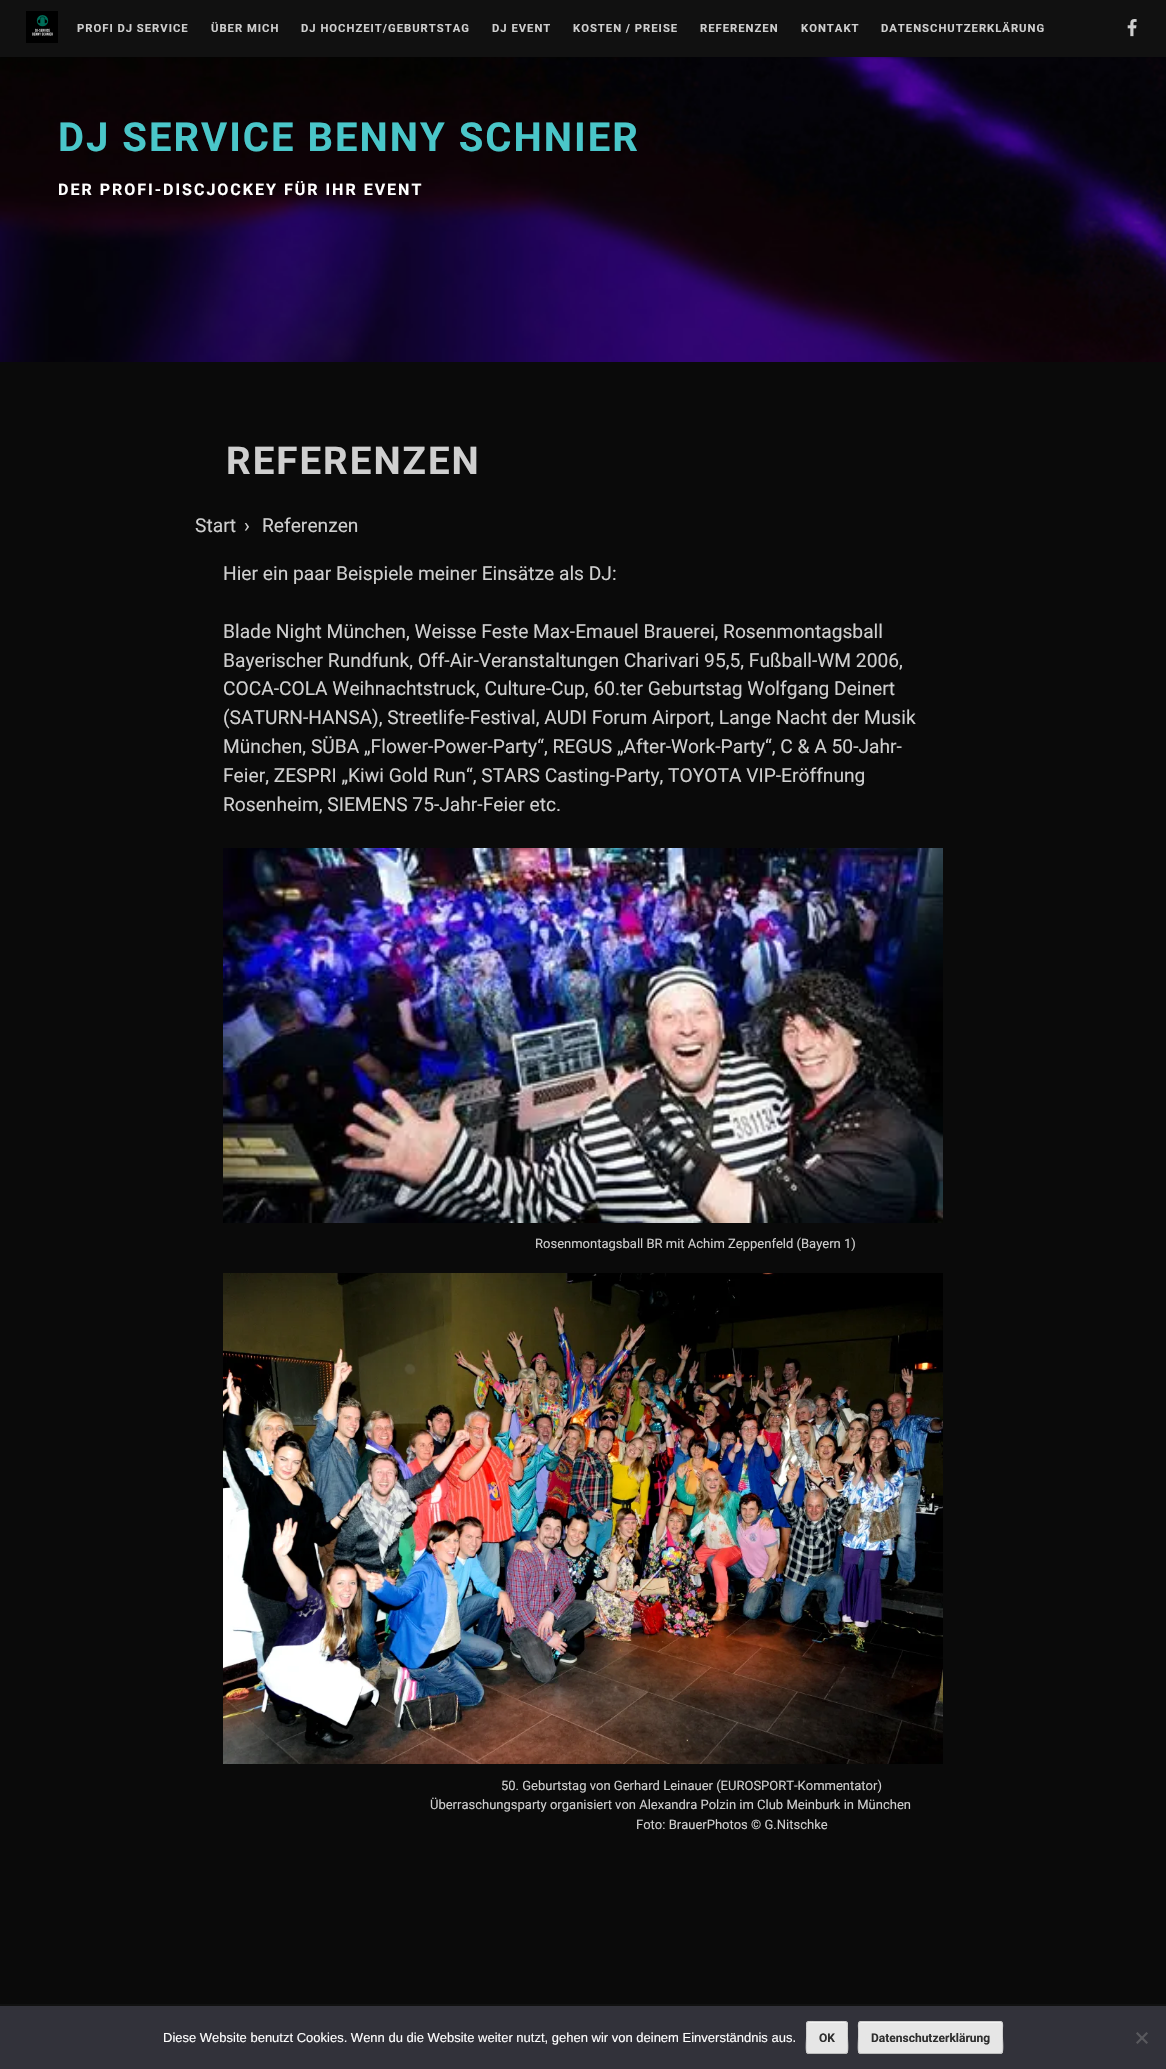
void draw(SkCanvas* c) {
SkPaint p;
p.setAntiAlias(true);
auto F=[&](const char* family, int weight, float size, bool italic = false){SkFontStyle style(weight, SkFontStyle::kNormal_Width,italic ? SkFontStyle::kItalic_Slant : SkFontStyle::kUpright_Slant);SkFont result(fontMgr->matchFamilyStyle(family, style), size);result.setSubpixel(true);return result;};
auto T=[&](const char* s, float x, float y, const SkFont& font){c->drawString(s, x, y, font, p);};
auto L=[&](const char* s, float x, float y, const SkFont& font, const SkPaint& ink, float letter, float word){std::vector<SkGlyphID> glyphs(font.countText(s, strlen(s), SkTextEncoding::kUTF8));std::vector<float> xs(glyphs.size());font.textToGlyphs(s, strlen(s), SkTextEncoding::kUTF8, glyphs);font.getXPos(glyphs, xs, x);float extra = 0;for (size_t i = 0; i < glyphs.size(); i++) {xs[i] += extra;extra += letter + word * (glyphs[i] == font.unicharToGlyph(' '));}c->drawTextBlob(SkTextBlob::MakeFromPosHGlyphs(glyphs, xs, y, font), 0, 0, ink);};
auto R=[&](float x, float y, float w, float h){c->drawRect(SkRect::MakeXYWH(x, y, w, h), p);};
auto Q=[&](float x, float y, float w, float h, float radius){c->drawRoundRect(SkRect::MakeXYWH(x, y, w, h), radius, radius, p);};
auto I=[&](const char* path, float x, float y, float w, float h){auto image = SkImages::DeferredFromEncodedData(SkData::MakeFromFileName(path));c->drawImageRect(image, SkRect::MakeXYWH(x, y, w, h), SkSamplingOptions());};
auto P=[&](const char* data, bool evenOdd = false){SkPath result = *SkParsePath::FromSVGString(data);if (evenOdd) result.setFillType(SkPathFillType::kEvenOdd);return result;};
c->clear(0xff0a0a0a);
I("3.png",0,57,1166,305);
p.setColor(0x33000000);
p.setMaskFilter(SkMaskFilter::MakeBlur(kNormal_SkBlurStyle, 1));
c->drawRect(SkRect::MakeXYWH(0,1,1166,57),p);
p.setMaskFilter(nullptr);
p.setColor(0xff111111);
R(0,0,1166,57);
I("1.png",26,11,32,32);
auto f1 = F("Roboto",700,11.25);
p.setColor(0xffcfcfcf);
L("PROFI DJ SERVICE",77,32,f1,p,1,0);
L("ÜBER MICH",211,32,f1,p,1,0);
L("DJ HOCHZEIT/GEBURTSTAG",301,32,f1,p,1,0);
L("DJ EVENT",492,32,f1,p,1,0);
L("KOSTEN / PREISE",573,32,f1,p,1,0);
L("REFERENZEN",700,32,f1,p,1,0);
L("KONTAKT",801,32,f1,p,1,0);
L("DATENSCHUTZERKLÄRUNG",881,32,f1,p,1,0);
I("2.png",1127,19,10,18);
auto f2 = F("Roboto",700,40);
p.setColor(0xff4ac6c9);
L("DJ SERVICE BENNY SCHNIER",58,151,f2,p,2,0);
auto f3 = F("Roboto",700,16);
p.setColor(0xffffffff);
L("DER PROFI-DISCJOCKEY FÜR IHR EVENT",58,195,f3,p,2,0);
auto f4 = F("Roboto",700,38.5);
p.setColor(0xffcfcfcf);
L("REFERENZEN",226,474,f4,p,2,0);
auto f5 = F("Roboto",400,19.2);
T("Start",195,532,f5);
T("›",244,532,f5);
T("Referenzen",262,532,f5);
T("Hier ein paar Beispiele meiner Einsätze als DJ:",223,580,f5);
T("Blade Night München, Weisse Feste Max-Emauel Brauerei, Rosenmontagsball",223,638,f5);
T("Bayerischer Rundfunk, Off-Air-Veranstaltungen Charivari 95,5, Fußball-WM 2006,",223,667,f5);
T("COCA-COLA Weihnachtstruck, Culture-Cup, 60.ter Geburtstag Wolfgang Deinert",223,695,f5);
T("(SATURN-HANSA), Streetlife-Festival, AUDI Forum Airport, Lange Nacht der Musik",223,724,f5);
T("München, SÜBA „Flower-Power-Party“, REGUS „After-Work-Party“, C & A 50-Jahr-",223,753,f5);
T("Feier, ZESPRI „Kiwi Gold Run“, STARS Casting-Party, TOYOTA VIP-Eröffnung",223,782,f5);
T("Rosenheim, SIEMENS 75-Jahr-Feier etc.",223,811,f5);
I("4.png",223,848,720,375);
auto f6 = F("Roboto",400,13);
T("Rosenmontagsball BR mit Achim Zeppenfeld (Bayern 1)",535,1248,f6);
I("5.png",223,1273,720,491);
T("50. Geburtstag von Gerhard Leinauer (EUROSPORT-Kommentator)",501,1790,f6);
T("Überraschungsparty organisiert von Alexandra Polzin im Club Meinburk in München",430,1809,f6);
T("Foto: BrauerPhotos © G.Nitschke",636,1829,f6);
p.setColor(0xff111111);
R(0,2004,1166,2);
p.setColor(0xff32323a);
R(0,2006,1166,63);
auto f7 = F("Liberation Sans",400,13);
p.setColor(0xffffffff);
T("Diese Website benutzt Cookies. Wenn du die Website weiter nutzt, gehen wir von deinem Einverständnis aus.",163,2042,f7);
p.setColor(0xffe6e6e6);
Q(806,2021,42,33,3);
p.setColor(0xfff3f3f3);
c->drawPath(P("M809 2023h36c1 0 2 1 2 2c0-4-4-3-8-3h-24c-4 0-8-1-8 3c0-1 1-2 2-2z"),p);
p.setStroke(true);
p.setStrokeWidth(1);
p.setColor(0xffbbbbbb);
c->drawPath(P("M847 2053l-2 .5h-36l-2-.5"),p);
p.setColor(0xffcccccc);
c->drawPath(P("M807 2053c-1.5-2-.5-13-.5-15.5v-9c0-8 0-7 8.5-7h24c8.5 0 8.5-1 8.5 7v9c0 2.5 1 13.5-.5 15.5"),p);
auto f8 = F("Roboto",700,12);
p.setStroke(false);
p.setColor(0xff2e2e2e);
T("OK",819,2042,f8);
p.setColor(0xffe6e6e6);
Q(858,2021,145,33,3);
p.setColor(0xfff3f3f3);
c->drawPath(P("M861 2023h139c1 0 2 1 2 2c0-1 0-2-1-3h-140l-2 1v2c0-1 1-2 2-2z"),p);
p.setStroke(true);
p.setColor(0xffbbbbbb);
c->drawPath(P("M1002 2053l-2 .5h-139l-2-.5"),p);
p.setColor(0xffcccccc);
c->drawPath(P("M859 2053c-1.5-2-.5-13-.5-15.5v-9c0-2-1-7 2.5-7h139c3.5 0 2.5 5 2.5 7v9c0 2.5 1 13.5-.5 15.5"),p);
p.setStroke(false);
p.setColor(0xff2e2e2e);
T("Datenschutzerklärung",871,2042,f8);
p.setColor(0xff59595d);
c->drawPath(P("M1146.5 2032l1.5 1.5l-10.5 10.5l-1.5-1.5z"),p);
c->drawPath(P("M1136 2033.5l1.5-1.5l10.5 10.5l-1.5 1.5z"),p);
}
